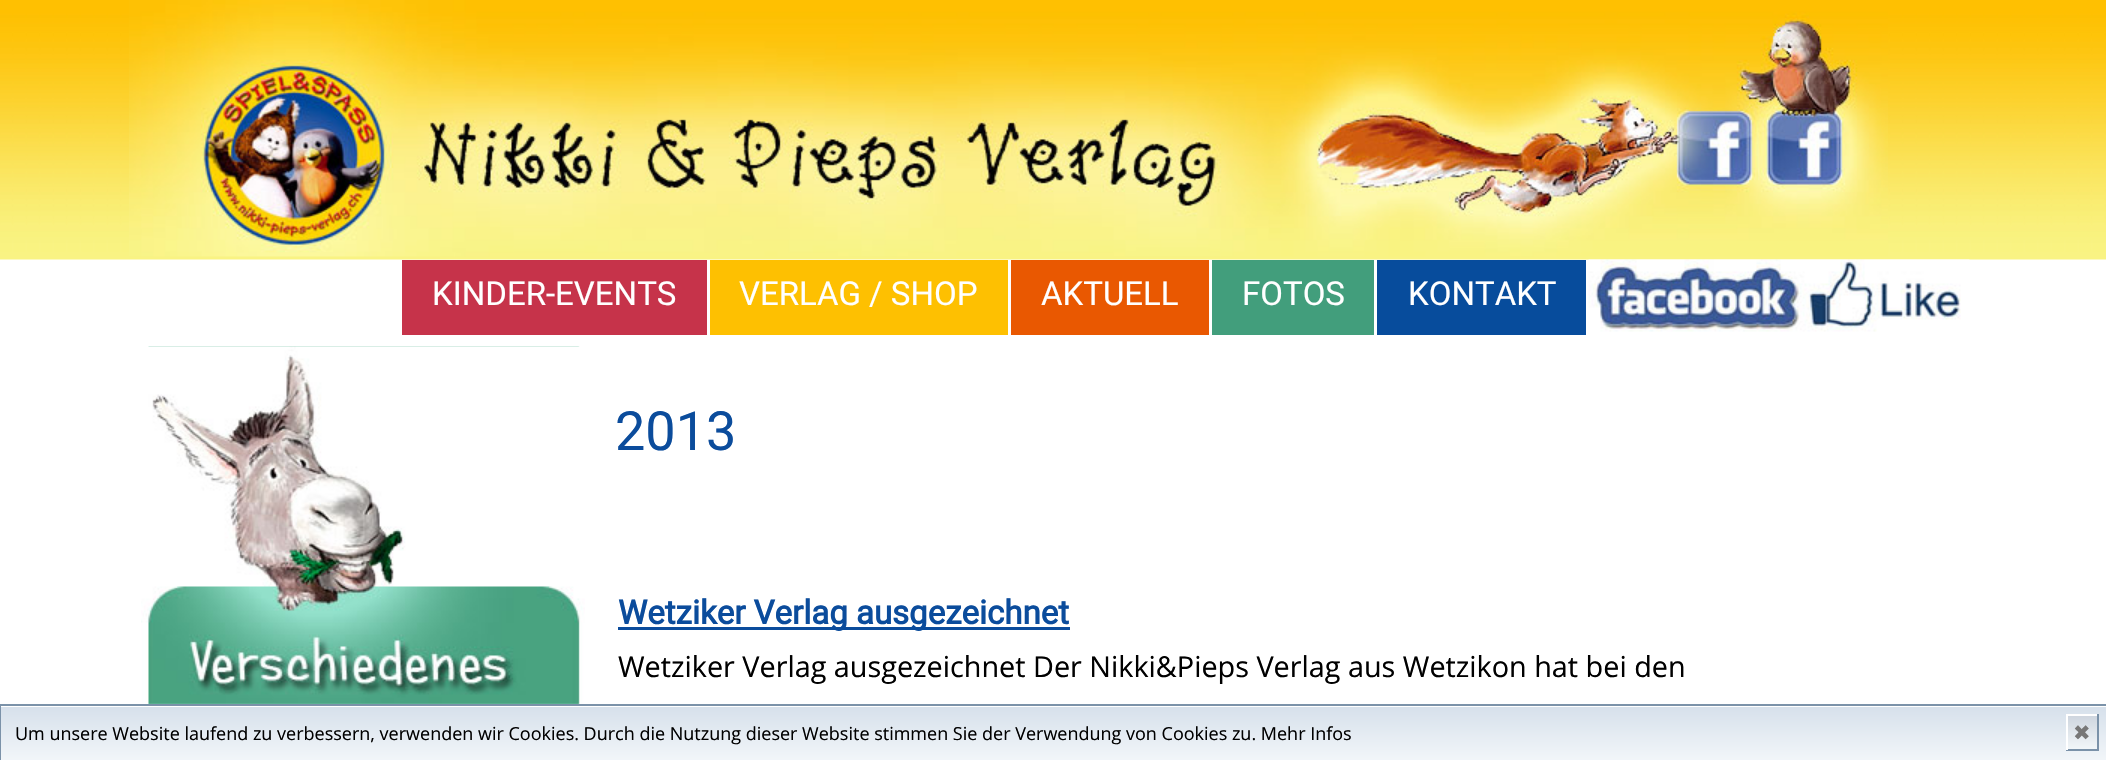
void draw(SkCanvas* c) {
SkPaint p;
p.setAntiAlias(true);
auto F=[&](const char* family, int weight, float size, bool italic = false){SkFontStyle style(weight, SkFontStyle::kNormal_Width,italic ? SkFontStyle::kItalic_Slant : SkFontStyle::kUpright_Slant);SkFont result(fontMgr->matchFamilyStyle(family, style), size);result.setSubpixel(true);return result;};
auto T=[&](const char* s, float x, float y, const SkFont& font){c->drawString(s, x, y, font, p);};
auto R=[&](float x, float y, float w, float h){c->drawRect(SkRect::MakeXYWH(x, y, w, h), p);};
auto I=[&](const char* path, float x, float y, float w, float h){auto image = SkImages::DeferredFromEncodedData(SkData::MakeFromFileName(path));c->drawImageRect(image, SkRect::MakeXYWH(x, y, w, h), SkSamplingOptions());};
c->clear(0xffffffff);
I("1.png",0,0,2106,260);
I("2.png",129,0,1759,257);
p.setColor(0xffc6334a);
R(402,260,305,75);
auto f1 = F("Roboto",400,33);
p.setColor(0xffffffff);
T("KINDER-EVENTS",432,305,f1);
p.setColor(0xfffec001);
R(710,260,298,75);
p.setColor(0xffffffff);
T("VERLAG / SHOP",739,305,f1);
p.setColor(0xffe95801);
R(1011,260,198,75);
p.setColor(0xffffffff);
T("AKTUELL",1041,305,f1);
p.setColor(0xff429e7c);
R(1212,260,162,75);
p.setColor(0xffffffff);
T("FOTOS",1242,305,f1);
p.setColor(0xff074c9c);
R(1377,260,209,75);
p.setColor(0xffffffff);
T("KONTAKT",1408,305,f1);
I("3.png",1588,259,382,73);
I("4.png",148,346,432,358);
I("5.png",141,346,444,358);
auto f2 = F("Roboto",400,54);
p.setColor(0xff0b4c9c);
T("2013",615,450,f2);
R(618,627,452,3);
auto f3 = F("Roboto",700,33);
T("Wetziker Verlag ausgezeichnet",618,624,f3);
auto f4 = F("Open Sans",400,28.8);
p.setColor(0xff000000);
T("Wetziker Verlag ausgezeichnet Der Nikki&Pieps Verlag aus Wetzikon hat bei den",618,677,f4);
{
const SkColor colors[] = {0xffd6e0eb,0xfff2f6f9};
const float stops[] = {0,1};
const SkPoint ends[] = {{1053,706}, {1053,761}};
p.setShader(SkGradientShader::MakeLinear(ends, colors, stops, 2, SkTileMode::kClamp));
p.setAlpha(255);
}
R(1,707,2105,53);
p.setStroke(true);
p.setStrokeWidth(2);
p.setShader(nullptr);
p.setColor(0xff7b92a9);
c->drawRect(SkRect::MakeXYWH(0,705,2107,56),p);
auto f5 = F("Open Sans",400,18);
p.setStroke(false);
p.setColor(0xff000000);
T("Um unsere Website laufend zu verbessern, verwenden wir Cookies. Durch die Nutzung dieser Website stimmen Sie der Verwendung von Cookies zu. Mehr Infos",15,740,f5);
{
const SkColor colors[] = {0xffced6df,0xfff2f6f9};
const float stops[] = {0,1};
const SkPoint ends[] = {{2067,716}, {2067,749}};
p.setShader(SkGradientShader::MakeLinear(ends, colors, stops, 2, SkTileMode::kClamp));
p.setAlpha(255);
}
R(2068,716,29,33);
p.setShader(nullptr);
p.setColor(0xffffffff);
R(2066,714,33,2);
p.setColor(0xff7b92a9);
R(2097,714,2,36);
R(2066,749,33,2);
p.setColor(0xffffffff);
R(2066,714,2,36);
auto f6 = F("DejaVu Sans",400,21);
p.setColor(0xff777777);
T("✖",2073,740,f6);
}
